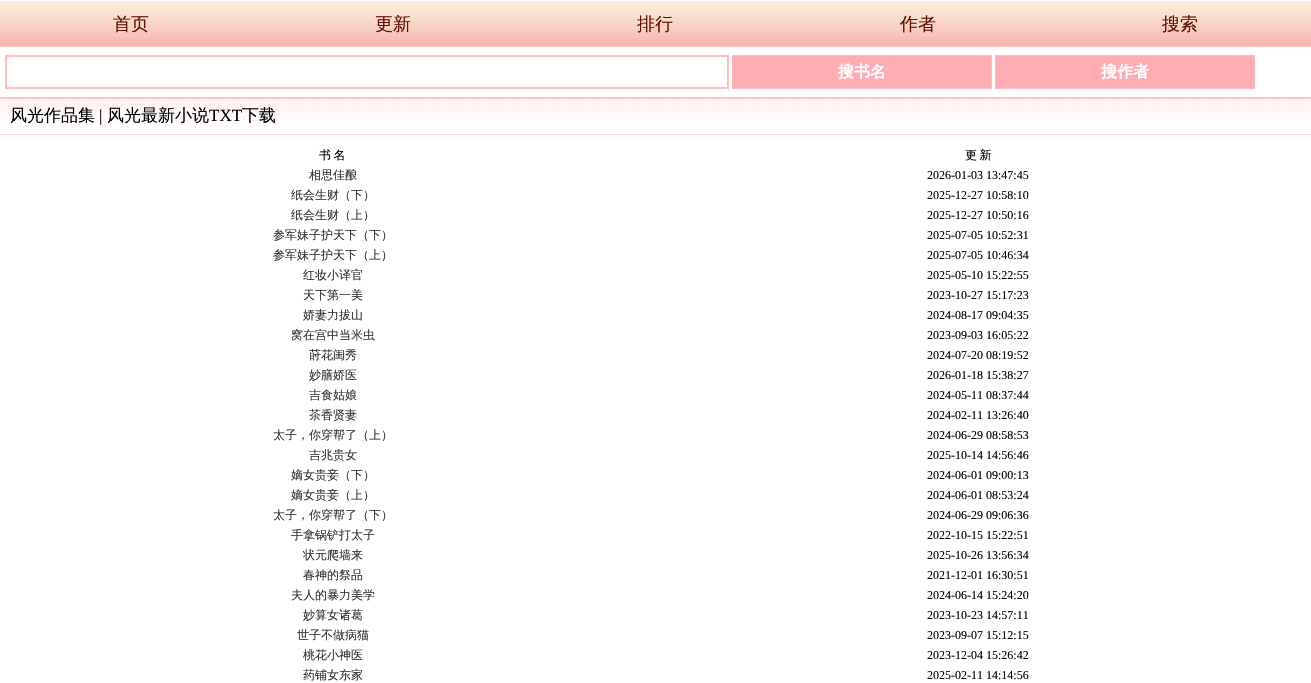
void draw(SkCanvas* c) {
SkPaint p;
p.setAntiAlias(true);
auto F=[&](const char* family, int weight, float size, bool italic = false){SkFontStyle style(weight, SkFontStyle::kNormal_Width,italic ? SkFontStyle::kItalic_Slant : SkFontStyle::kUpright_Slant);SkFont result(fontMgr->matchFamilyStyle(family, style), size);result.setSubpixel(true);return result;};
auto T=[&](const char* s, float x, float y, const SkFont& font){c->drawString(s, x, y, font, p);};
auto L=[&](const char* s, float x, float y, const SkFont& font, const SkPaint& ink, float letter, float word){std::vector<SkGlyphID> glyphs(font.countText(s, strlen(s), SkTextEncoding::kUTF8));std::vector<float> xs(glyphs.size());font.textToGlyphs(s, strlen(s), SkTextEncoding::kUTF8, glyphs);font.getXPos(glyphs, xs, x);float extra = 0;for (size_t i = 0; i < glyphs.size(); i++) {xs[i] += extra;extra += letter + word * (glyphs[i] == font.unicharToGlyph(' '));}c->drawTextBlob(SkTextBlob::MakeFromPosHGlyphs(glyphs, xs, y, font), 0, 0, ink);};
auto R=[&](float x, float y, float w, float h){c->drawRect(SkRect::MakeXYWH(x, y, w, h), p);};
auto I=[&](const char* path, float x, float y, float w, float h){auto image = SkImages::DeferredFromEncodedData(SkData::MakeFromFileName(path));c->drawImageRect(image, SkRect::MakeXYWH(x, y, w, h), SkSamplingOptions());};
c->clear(0xffffffff);
I("1.png",0,1,1311,45);
p.setColor(0xffffcaca);
R(0,46,1311,1);
auto f1 = F("WenQuanYi Zen Hei",500,18);
p.setColor(0xff611004);
T("首页",113,30,f1);
T("更新",375,30,f1);
T("排行",637,30,f1);
T("作者",900,30,f1);
T("搜索",1162,30,f1);
p.setStroke(true);
p.setStrokeWidth(2);
p.setColor(0xfffebbbb);
c->drawRect(SkRect::MakeXYWH(6,56,722,32),p);
p.setStroke(false);
p.setColor(0xffffadb4);
c->drawRect(SkRect::MakeXYWH(732.5,55.5,259,33),p);
p.setStroke(true);
p.setStrokeWidth(1);
p.setColor(0xfffebbbb);
c->drawRect(SkRect::MakeXYWH(732.5,55.5,259,33),p);
auto f2 = F("WenQuanYi Zen Hei",700,16);
p.setStroke(false);
p.setColor(0xffffffff);
T("搜书名",838,77,f2);
p.setColor(0xffffadb4);
c->drawRect(SkRect::MakeXYWH(995.5,55.5,259,33),p);
p.setStroke(true);
p.setColor(0xfffebbbb);
c->drawRect(SkRect::MakeXYWH(995.5,55.5,259,33),p);
p.setStroke(false);
p.setColor(0xffffffff);
T("搜作者",1101,77,f2);
I("2.png",0,98,1311,23);
p.setColor(0xfffebbbb);
R(0,97,1311,1);
p.setColor(0xffffdddd);
R(0,134,1311,1);
auto f3 = F("WenQuanYi Zen Hei",500,17);
p.setColor(0xff000000);
T("风光作品集",10,121,f3);
auto f4 = F("Liberation Serif",400,17);
T("|",99,121,f4);
T("风光最新小说",107,121,f3);
T("TXT",209,121,f4);
T("下载",242,121,f3);
auto f5 = F("WenQuanYi Zen Hei",500,12);
L("书 名",319,159,f5,p,0,-1);
L("更 新",965,159,f5,p,0,-1);
p.setColor(0xff333333);
T("相思佳酿",309,179,f5);
auto f6 = F("Liberation Serif",400,12);
p.setColor(0xff000000);
T("2026-01-03 13:47:45",927,179,f6);
p.setColor(0xff333333);
T("纸会生财（下）",291,199,f5);
p.setColor(0xff000000);
T("2025-12-27 10:58:10",927,199,f6);
p.setColor(0xff333333);
T("纸会生财（上）",291,219,f5);
p.setColor(0xff000000);
T("2025-12-27 10:50:16",927,219,f6);
p.setColor(0xff333333);
T("参军妹子护天下（下）",273,239,f5);
p.setColor(0xff000000);
T("2025-07-05 10:52:31",927,239,f6);
p.setColor(0xff333333);
T("参军妹子护天下（上）",273,259,f5);
p.setColor(0xff000000);
T("2025-07-05 10:46:34",927,259,f6);
p.setColor(0xff333333);
T("红妆小译官",303,279,f5);
p.setColor(0xff000000);
T("2025-05-10 15:22:55",927,279,f6);
p.setColor(0xff333333);
T("天下第一美",303,299,f5);
p.setColor(0xff000000);
T("2023-10-27 15:17:23",927,299,f6);
p.setColor(0xff333333);
T("娇妻力拔山",303,319,f5);
p.setColor(0xff000000);
T("2024-08-17 09:04:35",927,319,f6);
p.setColor(0xff333333);
T("窝在宫中当米虫",291,339,f5);
p.setColor(0xff000000);
T("2023-09-03 16:05:22",927,339,f6);
p.setColor(0xff333333);
T("莳花闺秀",309,359,f5);
p.setColor(0xff000000);
T("2024-07-20 08:19:52",927,359,f6);
p.setColor(0xff333333);
T("妙膳娇医",309,379,f5);
p.setColor(0xff000000);
T("2026-01-18 15:38:27",927,379,f6);
p.setColor(0xff333333);
T("吉食姑娘",309,399,f5);
p.setColor(0xff000000);
T("2024-05-11 08:37:44",927,399,f6);
p.setColor(0xff333333);
T("茶香贤妻",309,419,f5);
p.setColor(0xff000000);
T("2024-02-11 13:26:40",927,419,f6);
p.setColor(0xff333333);
T("太子，你穿帮了（上）",273,439,f5);
p.setColor(0xff000000);
T("2024-06-29 08:58:53",927,439,f6);
p.setColor(0xff333333);
T("吉兆贵女",309,459,f5);
p.setColor(0xff000000);
T("2025-10-14 14:56:46",927,459,f6);
p.setColor(0xff333333);
T("嫡女贵妾（下）",291,479,f5);
p.setColor(0xff000000);
T("2024-06-01 09:00:13",927,479,f6);
p.setColor(0xff333333);
T("嫡女贵妾（上）",291,499,f5);
p.setColor(0xff000000);
T("2024-06-01 08:53:24",927,499,f6);
p.setColor(0xff333333);
T("太子，你穿帮了（下）",273,519,f5);
p.setColor(0xff000000);
T("2024-06-29 09:06:36",927,519,f6);
p.setColor(0xff333333);
T("手拿锅铲打太子",291,539,f5);
p.setColor(0xff000000);
T("2022-10-15 15:22:51",927,539,f6);
p.setColor(0xff333333);
T("状元爬墙来",303,559,f5);
p.setColor(0xff000000);
T("2025-10-26 13:56:34",927,559,f6);
p.setColor(0xff333333);
T("春神的祭品",303,579,f5);
p.setColor(0xff000000);
T("2021-12-01 16:30:51",927,579,f6);
p.setColor(0xff333333);
T("夫人的暴力美学",291,599,f5);
p.setColor(0xff000000);
T("2024-06-14 15:24:20",927,599,f6);
p.setColor(0xff333333);
T("妙算女诸葛",303,619,f5);
p.setColor(0xff000000);
T("2023-10-23 14:57:11",927,619,f6);
p.setColor(0xff333333);
T("世子不做病猫",297,639,f5);
p.setColor(0xff000000);
T("2023-09-07 15:12:15",927,639,f6);
p.setColor(0xff333333);
T("桃花小神医",303,659,f5);
p.setColor(0xff000000);
T("2023-12-04 15:26:42",927,659,f6);
p.setColor(0xff333333);
T("药铺女东家",303,679,f5);
p.setColor(0xff000000);
T("2025-02-11 14:14:56",927,679,f6);
}
